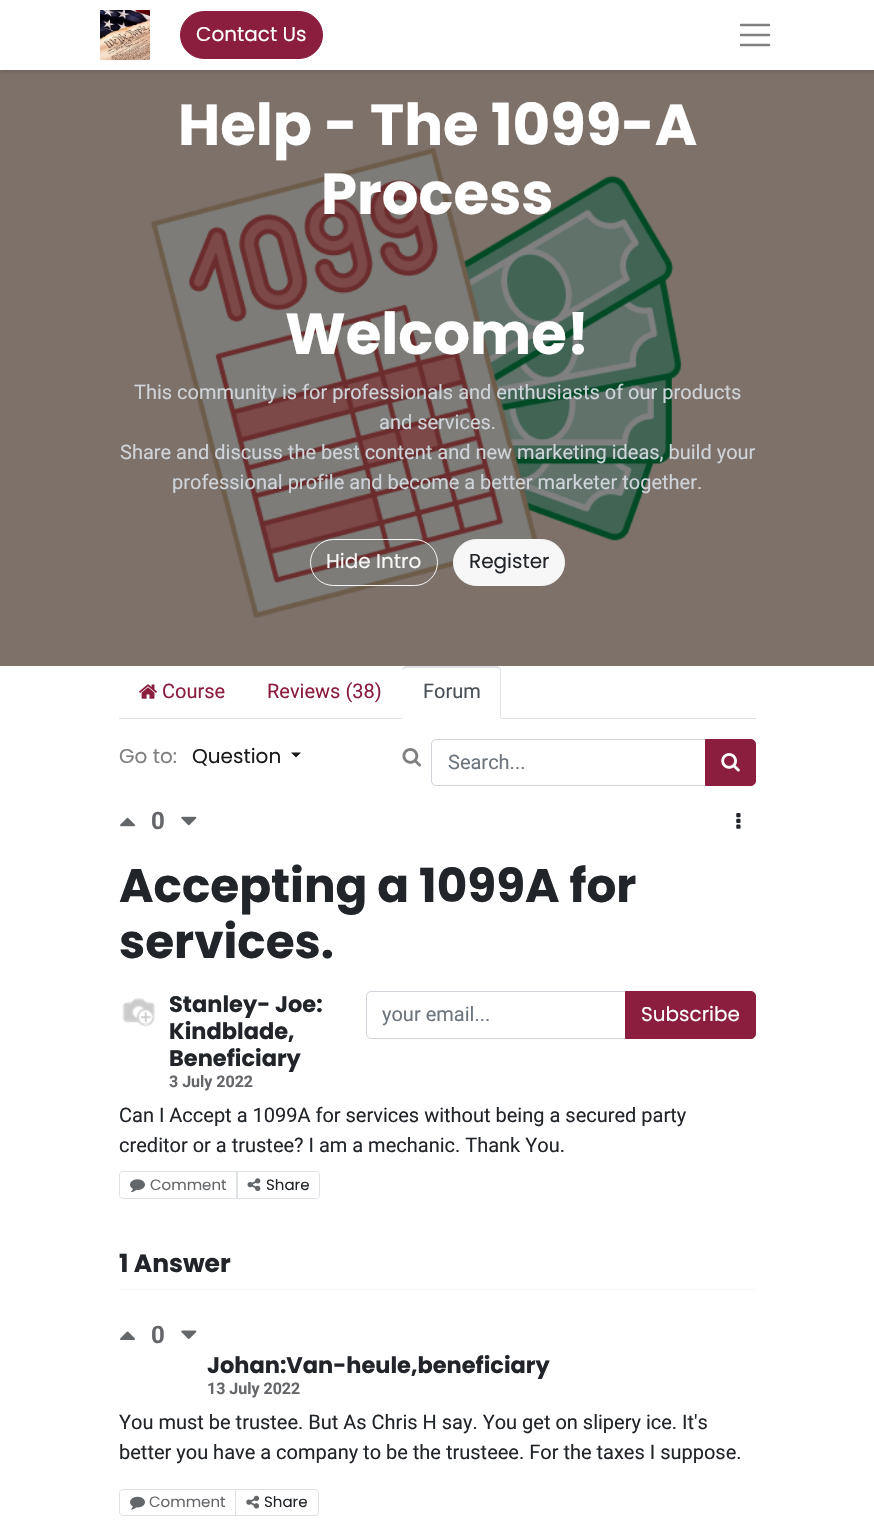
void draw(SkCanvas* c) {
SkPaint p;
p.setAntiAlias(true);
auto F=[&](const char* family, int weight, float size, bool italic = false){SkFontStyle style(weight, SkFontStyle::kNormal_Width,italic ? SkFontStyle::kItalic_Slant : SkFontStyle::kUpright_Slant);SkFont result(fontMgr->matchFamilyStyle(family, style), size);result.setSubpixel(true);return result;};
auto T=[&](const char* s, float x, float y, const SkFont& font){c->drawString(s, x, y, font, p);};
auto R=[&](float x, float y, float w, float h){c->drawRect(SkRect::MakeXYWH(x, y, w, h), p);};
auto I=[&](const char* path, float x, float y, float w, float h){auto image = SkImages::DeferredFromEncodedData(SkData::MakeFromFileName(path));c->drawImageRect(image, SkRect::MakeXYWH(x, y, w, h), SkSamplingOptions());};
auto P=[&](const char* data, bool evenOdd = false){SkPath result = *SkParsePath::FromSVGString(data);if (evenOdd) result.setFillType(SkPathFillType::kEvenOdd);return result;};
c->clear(0xffffffff);
I("2.png",0,70,874,596);
c->save();
c->clipRect(SkRect::MakeXYWH(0,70,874,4));
p.setColor(0x40000000);
p.setMaskFilter(SkMaskFilter::MakeBlur(kNormal_SkBlurStyle, 3));
c->drawRect(SkRect::MakeXYWH(0,0,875,70),p);
p.setMaskFilter(nullptr);
c->restore();
I("1.png",100,10,50,50);
p.setColor(0xff8b1e3f);
c->drawRoundRect(SkRect::MakeXYWH(180.5,11.5,142,47),23.5,23.5,p);
p.setStroke(true);
p.setStrokeWidth(1);
c->drawRoundRect(SkRect::MakeXYWH(180.5,11.5,142,47),23.5,23.5,p);
auto f1 = F("Poppins",400,20);
p.setStroke(false);
p.setColor(0xffffffff);
T("Contact Us",196,41,f1);
p.setStroke(true);
p.setStrokeWidth(2.5);
p.setStrokeCap(SkPaint::kRound_Cap);
p.setColor(0xff808080);
c->drawPath(P("M741 25h28m-28 10h28m-28 10h28"),p);
auto f2 = F("Poppins",700,57.75);
p.setStroke(false);
p.setColor(0xffffffff);
T("Help - The 1099-A",178,145,f2);
T("Process",321,214,f2);
T("Welcome!",285,354,f2);
auto f3 = F("Roboto",400,20);
p.setColor(0xffced4da);
T("This community is for professionals and enthusiasts of our products",134,399,f3);
T("and services.",379,429,f3);
T("Share and discuss the best content and new marketing ideas, build your",120,459,f3);
T("professional profile and become a better marketer together.",172,489,f3);
p.setStroke(true);
p.setStrokeWidth(1);
p.setStrokeCap(SkPaint::kButt_Cap);
p.setColor(0xfff7f7f7);
c->drawRoundRect(SkRect::MakeXYWH(310.5,539.5,127,46),23,23,p);
p.setStroke(false);
T("Hide Intro",326,568,f1);
c->drawRoundRect(SkRect::MakeXYWH(453.5,539.5,111,46),23,23,p);
p.setStroke(true);
c->drawRoundRect(SkRect::MakeXYWH(453.5,539.5,111,46),23,23,p);
p.setStroke(false);
p.setColor(0xff212529);
T("Register",469,568,f1);
p.setColor(0xffdee2e6);
R(119,718,637,1);
I("3.png",139,684,18,15);
p.setColor(0xff8b1e3f);
T("Course",162,698,f3);
T("Reviews (38)",267,698,f3);
p.setColor(0xffffffff);
c->drawPath(P("M408 666h88c3 0 5 2 5 5v48h-98v-48c0-3 2-5 5-5z"),p);
p.setColor(0xffdee2e6);
c->drawPath(P("M408 668c-2 0-5 1-6 2c0-2 3-4 4-4h92l2 2l-1 1l-3-1z"),p);
c->drawPath(P("M500 718v-48l-1-1l1-1c1 0 1 2 1 3v47z"),p);
p.setColor(0xffffffff);
c->drawPath(P("M402 718h98l1 1h-99z"),p);
p.setColor(0xff495057);
T("Forum",423,698,f3);
p.setColor(0xff808080);
T("Go to:",119,763,f1);
p.setColor(0xff1a1a1a);
T("Question",192,763,f1);
c->drawPath(P("M291 752.5h10l-5 5z"),p);
I("4.png",402,748,19,19);
p.setStroke(true);
p.setColor(0xffced4da);
c->drawPath(P("M436 739.5h269.5v46h-269.5c-2.5 0-4.5-2-4.5-4.5v-37c0-2.5 2-4.5 4.5-4.5z"),p);
p.setStroke(false);
p.setColor(0xff6c757d);
T("Search...",448,769,f3);
p.setColor(0xff8b1e3f);
c->drawPath(P("M705.5 739.5h45.5c2.5 0 4.5 2 4.5 4.5v37c0 2.5-2 4.5-4.5 4.5h-45.5z"),p);
p.setStroke(true);
c->drawPath(P("M705.5 739.5h45.5c2.5 0 4.5 2 4.5 4.5v37c0 2.5-2 4.5-4.5 4.5h-45.5z"),p);
I("5.png",721,753,19,19);
I("6.png",120,817,15,10);
auto f4 = F("Roboto",700,24);
p.setStroke(false);
p.setColor(0xff646669);
T("0",151,829,f4);
I("7.png",181,816,16,10);
I("8.png",736,813,5,16);
auto f5 = F("Poppins",700,46.9);
p.setColor(0xff212529);
T("Accepting a 1099A for",119,902,f5);
T("services.",119,958,f5);
I("9.png",122,998,33,29);
auto f6 = F("Poppins",700,22.5);
T("Stanley- Joe:",169,1012,f6);
T("Kindblade,",169,1039,f6);
T("Beneficiary",169,1066,f6);
auto f7 = F("Roboto",700,16);
p.setColor(0xff646669);
T("3 July 2022",169,1087,f7);
p.setStroke(true);
p.setColor(0xffced4da);
c->drawPath(P("M371 991.5h256.5v47h-256.5c-2.5 0-4.5-2-4.5-4.5v-38c0-2.5 2-4.5 4.5-4.5z"),p);
p.setStroke(false);
p.setColor(0xff6c757d);
T("your email...",382,1021,f3);
p.setColor(0xff8b1e3f);
c->drawPath(P("M625.5 991.5h125.5c2.5 0 4.5 2 4.5 4.5v38c0 2.5-2 4.5-4.5 4.5h-125.5z"),p);
p.setStroke(true);
c->drawPath(P("M625.5 991.5h125.5c2.5 0 4.5 2 4.5 4.5v38c0 2.5-2 4.5-4.5 4.5h-125.5z"),p);
p.setStroke(false);
p.setColor(0xffffffff);
T("Subscribe",641,1021,f1);
p.setColor(0xff212529);
T("Can I Accept a 1099A for services without being a secured party",119,1122,f3);
T("creditor or a trustee? I am a mechanic. Thank You.",119,1152,f3);
p.setStroke(true);
p.setColor(0xffdee2e6);
c->drawPath(P("M123 1171.5h114.5v27h-114.5c-2 0-3.5-1.5-3.5-3.5v-20c0-2 1.5-3.5 3.5-3.5z"),p);
I("10.png",130,1179,15,14);
auto f8 = F("Poppins",400,15);
p.setStroke(false);
p.setColor(0xff646669);
T("Comment",150,1190,f8);
p.setStroke(true);
p.setColor(0xffdee2e6);
c->drawPath(P("M236.5 1171.5h79.5c2 0 3.5 1.5 3.5 3.5v20c0 2-1.5 3.5-3.5 3.5h-79.5z"),p);
I("11.png",247,1178,14,13);
p.setStroke(false);
p.setColor(0xff212529);
T("Share",266,1190,f8);
auto f9 = F("Poppins",700,25);
T("1 Answer",119,1272,f9);
p.setColor(0xfff7f7f7);
R(119,1289,637,1);
I("12.png",120,1331,15,9);
p.setColor(0xff646669);
T("0",151,1343,f4);
I("13.png",181,1330,16,9);
p.setColor(0xff212529);
T("Johan:Van-heule,beneficiary",207,1373,f6);
p.setColor(0xff646669);
T("13 July 2022",207,1394,f7);
p.setColor(0xff212529);
T("You must be trustee. But As Chris H say. You get on slipery ice. It's",119,1429,f3);
T("better you have a company to be the trusteee. For the taxes I suppose.",119,1459,f3);
p.setStroke(true);
p.setColor(0xffdee2e6);
c->drawPath(P("M123 1489.5h112.5v26h-112.5c-2 0-3.5-1.5-3.5-3.5v-19c0-2 1.5-3.5 3.5-3.5z"),p);
I("14.png",130,1496,15,14);
p.setStroke(false);
p.setColor(0xff646669);
T("Comment",149,1507,f8);
p.setStroke(true);
p.setColor(0xffdee2e6);
c->drawPath(P("M235.5 1489.5h79.5c2 0 3.5 1.5 3.5 3.5v19c0 2-1.5 3.5-3.5 3.5h-79.5z"),p);
I("15.png",246,1495,14,14);
p.setStroke(false);
p.setColor(0xff212529);
T("Share",264,1507,f8);
}
